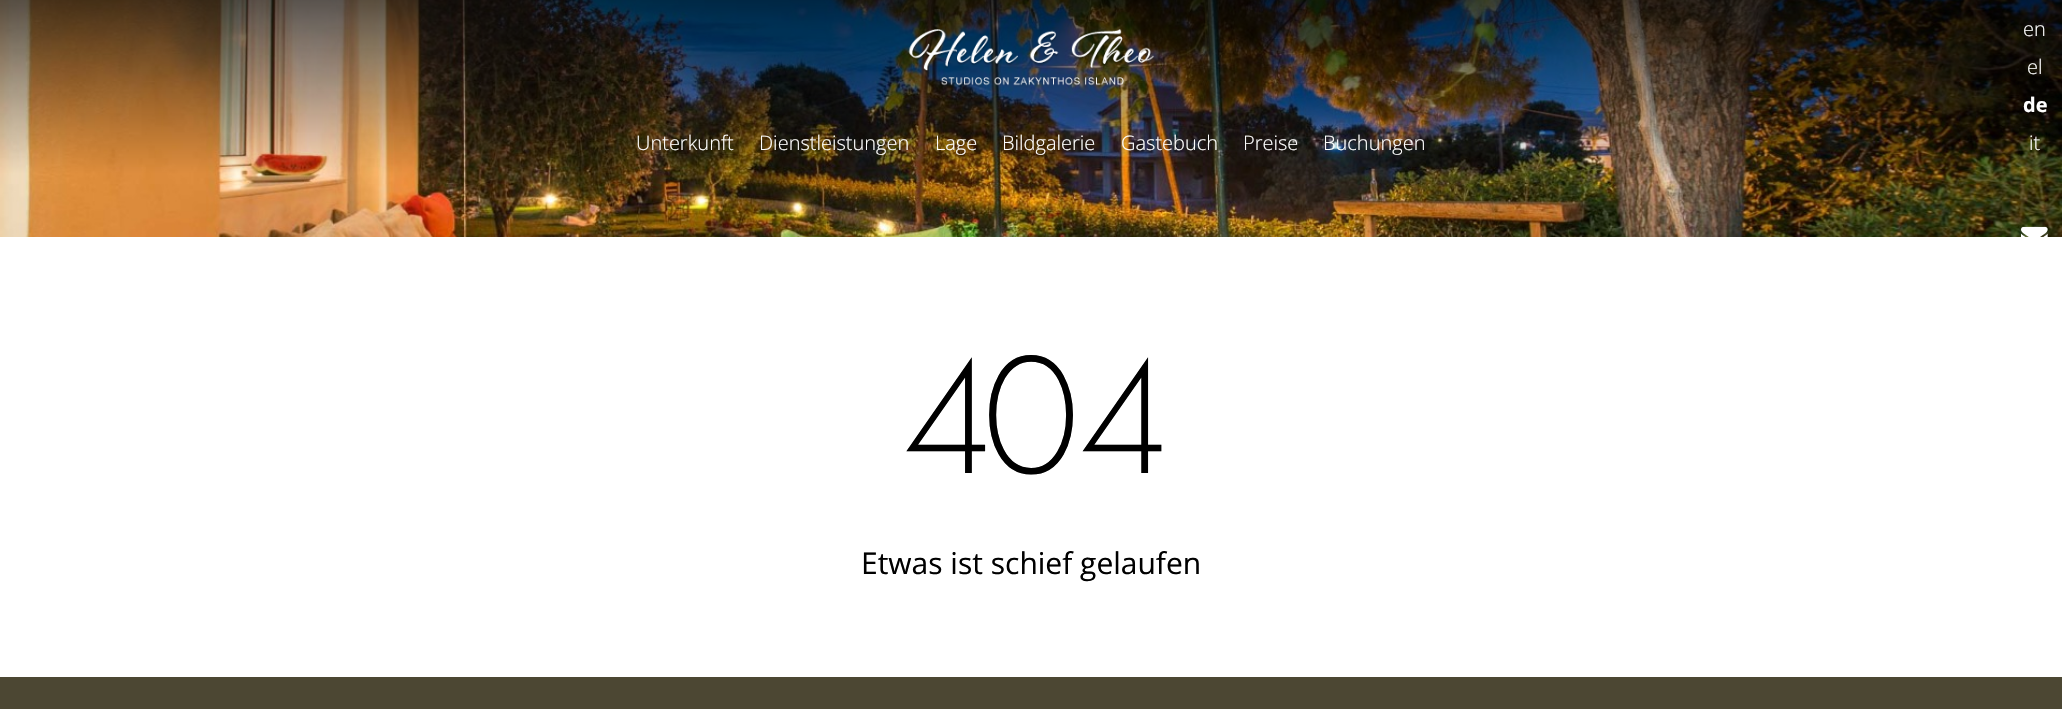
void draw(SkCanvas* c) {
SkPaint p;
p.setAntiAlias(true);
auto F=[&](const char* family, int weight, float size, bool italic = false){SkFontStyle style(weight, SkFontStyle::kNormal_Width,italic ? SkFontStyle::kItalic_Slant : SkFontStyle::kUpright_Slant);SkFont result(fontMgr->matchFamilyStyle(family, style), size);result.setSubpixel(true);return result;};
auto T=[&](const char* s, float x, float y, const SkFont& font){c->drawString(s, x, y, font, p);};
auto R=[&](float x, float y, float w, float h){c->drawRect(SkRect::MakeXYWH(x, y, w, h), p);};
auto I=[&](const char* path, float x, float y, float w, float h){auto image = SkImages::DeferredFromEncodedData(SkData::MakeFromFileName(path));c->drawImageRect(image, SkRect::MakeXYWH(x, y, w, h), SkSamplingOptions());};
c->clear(0xffffffff);
I("3.png",0,0,2062,237);
I("1.png",908,29,247,58);
auto f1 = F("Open Sans",300,20);
p.setColor(0xffffffff);
T("Unterkunft",636,150,f1);
T("Dienstleistungen",759,150,f1);
T("Lage",935,150,f1);
T("Bildgalerie",1002,150,f1);
T("Gastebuch",1121,150,f1);
T("Preise",1243,150,f1);
T("Buchungen",1323,150,f1);
T("en",2023,36,f1);
T("el",2027,74,f1);
auto f2 = F("Open Sans",700,20);
T("de",2023,112,f2);
T("it",2029,150,f1);
I("2.png",2021,226,27,11);
auto f3 = F("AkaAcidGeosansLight",300,160);
p.setColor(0xff000000);
T("404",899,473,f3);
auto f4 = F("Open Sans",400,30);
T("Etwas ist schief gelaufen",861,574,f4);
p.setColor(0xff4c4733);
R(0,677,2062,32);
}
